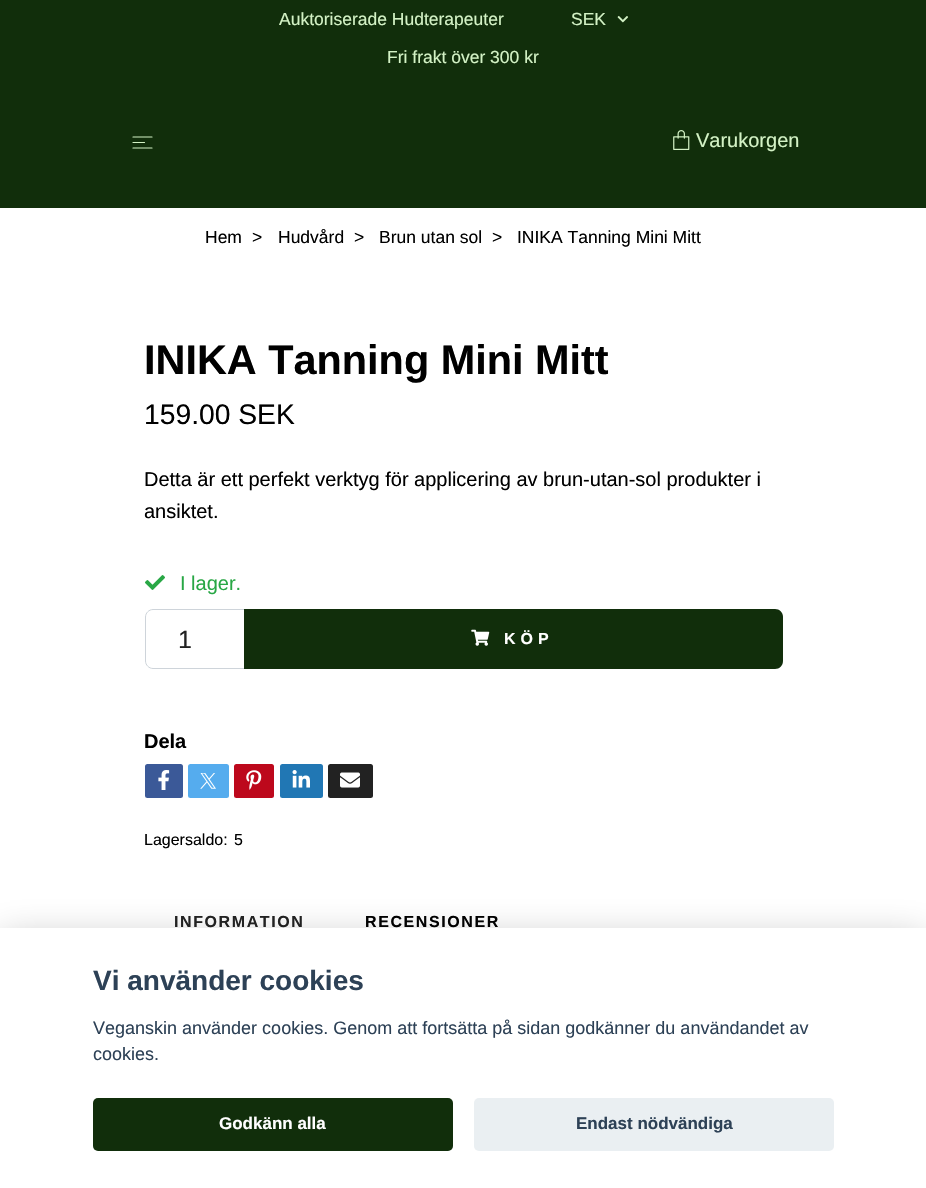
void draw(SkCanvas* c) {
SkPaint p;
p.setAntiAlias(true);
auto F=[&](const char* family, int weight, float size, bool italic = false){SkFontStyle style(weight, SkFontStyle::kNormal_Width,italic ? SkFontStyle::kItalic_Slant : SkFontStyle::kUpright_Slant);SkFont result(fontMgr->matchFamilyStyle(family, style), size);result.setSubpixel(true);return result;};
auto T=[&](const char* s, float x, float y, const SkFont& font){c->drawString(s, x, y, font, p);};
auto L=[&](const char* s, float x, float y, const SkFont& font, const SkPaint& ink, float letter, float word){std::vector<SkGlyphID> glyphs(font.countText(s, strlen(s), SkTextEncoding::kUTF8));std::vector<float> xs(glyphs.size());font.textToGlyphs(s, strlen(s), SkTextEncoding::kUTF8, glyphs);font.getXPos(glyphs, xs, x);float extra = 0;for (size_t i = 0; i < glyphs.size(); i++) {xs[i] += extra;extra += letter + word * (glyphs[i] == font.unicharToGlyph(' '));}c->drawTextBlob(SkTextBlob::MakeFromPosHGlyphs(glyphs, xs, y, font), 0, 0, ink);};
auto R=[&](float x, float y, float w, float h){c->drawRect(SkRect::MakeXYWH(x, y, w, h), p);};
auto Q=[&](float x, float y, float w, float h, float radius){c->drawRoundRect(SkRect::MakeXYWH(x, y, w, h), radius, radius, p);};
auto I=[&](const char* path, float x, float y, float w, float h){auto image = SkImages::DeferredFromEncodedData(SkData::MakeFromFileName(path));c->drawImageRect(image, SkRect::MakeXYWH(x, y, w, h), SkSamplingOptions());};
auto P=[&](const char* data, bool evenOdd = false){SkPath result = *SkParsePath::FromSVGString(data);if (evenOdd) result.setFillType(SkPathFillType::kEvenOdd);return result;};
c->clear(0xffffffff);
p.setColor(0xff112e0b);
R(0,0,926,208);
auto f1 = F("Liberation Sans",400,17.5);
p.setColor(0xffd3f2c5);
T("Auktoriserade Hudterapeuter",279,25,f1);
T("SEK",571,25,f1);
I("1.png",617,16,11,7);
T("Fri frakt över 300 kr",387,63,f1);
p.setStroke(true);
p.setStrokeWidth(1.2);
p.setStrokeCap(SkPaint::kRound_Cap);
p.setStrokeJoin(SkPaint::kRound_Join);
c->drawPath(P("M133 137h19m-19 5.5h11.5m-11.5 5.5h19"),p);
I("2.png",673,130,17,20);
auto f2 = F("Liberation Sans",400,20);
p.setStroke(false);
T("Varukorgen",696,147,f2);
p.setColor(0xff000000);
T("Hem",205,243,f1);
T(">",252,243,f1);
T("Hudvård",278,243,f1);
T(">",354,243,f1);
T("Brun utan sol",379,243,f1);
T(">",492,243,f1);
T("INIKA Tanning Mini Mitt",517,243,f1);
auto f3 = F("Liberation Sans",700,41.4);
T("INIKA Tanning Mini Mitt",144,374,f3);
auto f4 = F("Liberation Sans",400,28.25);
T("159.00 SEK",144,424,f4);
T("Detta är ett perfekt verktyg för applicering av brun-utan-sol produkter i",144,486,f2);
T("ansiktet.",144,518,f2);
I("3.png",145,575,20,15);
p.setColor(0xff28a745);
T("I lager.",180,590,f2);
p.setStroke(true);
p.setStrokeWidth(1);
p.setStrokeCap(SkPaint::kButt_Cap);
p.setStrokeJoin(SkPaint::kMiter_Join);
p.setColor(0xffced4da);
c->drawPath(P("M153 609.5h91.5v59h-91.5c-4 0-7.5-3.5-7.5-7.5v-44c0-4 3.5-7.5 7.5-7.5z"),p);
auto f5 = F("Liberation Sans",400,25);
p.setStroke(false);
p.setColor(0xff222222);
T("1",178,648,f5);
p.setColor(0xff112e0b);
c->drawPath(P("M244 609h531c4.5 0 8 3.5 8 8v44c0 4.5-3.5 8-8 8h-531z"),p);
I("4.png",471,629,19,17);
auto f6 = F("Liberation Sans",700,16);
p.setColor(0xffffffff);
L("KÖP",504,644,f6,p,5,0);
auto f7 = F("Liberation Sans",700,20);
p.setColor(0xff000000);
T("Dela",144,748,f7);
p.setColor(0xff3b5998);
Q(145,764,38,34,2.5);
I("5.png",158,770,12,20);
p.setColor(0xff55acee);
Q(188,764,41,34,2.5);
p.setColor(0xffbd081c);
Q(234,764,40,34,2.5);
I("6.png",246,770,16,20);
p.setColor(0xff2177b4);
Q(280,764,43,34,2.5);
I("7.png",292,770,18,18);
p.setColor(0xff222222);
Q(328,764,45,34,2.5);
I("8.png",340,772,20,16);
I("9.png",200,773,16,16);
auto f8 = F("Liberation Sans",400,16);
p.setColor(0xff000000);
T("Lagersaldo:",144,845,f8);
T("5",234,845,f8);
p.setColor(0xff222222);
L("INFORMATION",174,927,f6,p,1.6,0);
p.setColor(0xff000000);
L("RECENSIONER",365,927,f6,p,1.6,0);
p.setColor(0x47020203);
p.setMaskFilter(SkMaskFilter::MakeBlur(kNormal_SkBlurStyle, 19));
c->drawRect(SkRect::MakeXYWH(0,940,926,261),p);
p.setMaskFilter(nullptr);
p.setColor(0xffffffff);
R(0,928,926,260);
auto f9 = F("Liberation Sans",700,28);
p.setColor(0xff2d4156);
T("Vi använder cookies",93,990,f9);
auto f10 = F("Liberation Sans",400,18);
T("Veganskin använder cookies. Genom att fortsätta på sidan godkänner du användandet av",93,1034,f10);
T("cookies.",93,1060,f10);
p.setColor(0xff112e0b);
Q(93,1098,360,53,5);
auto f11 = F("Liberation Sans",700,17);
p.setColor(0xffffffff);
T("Godkänn alla",219,1129,f11);
p.setColor(0xffeaeff2);
Q(474,1098,360,53,5);
p.setColor(0xff2d4156);
T("Endast nödvändiga",576,1129,f11);
}
